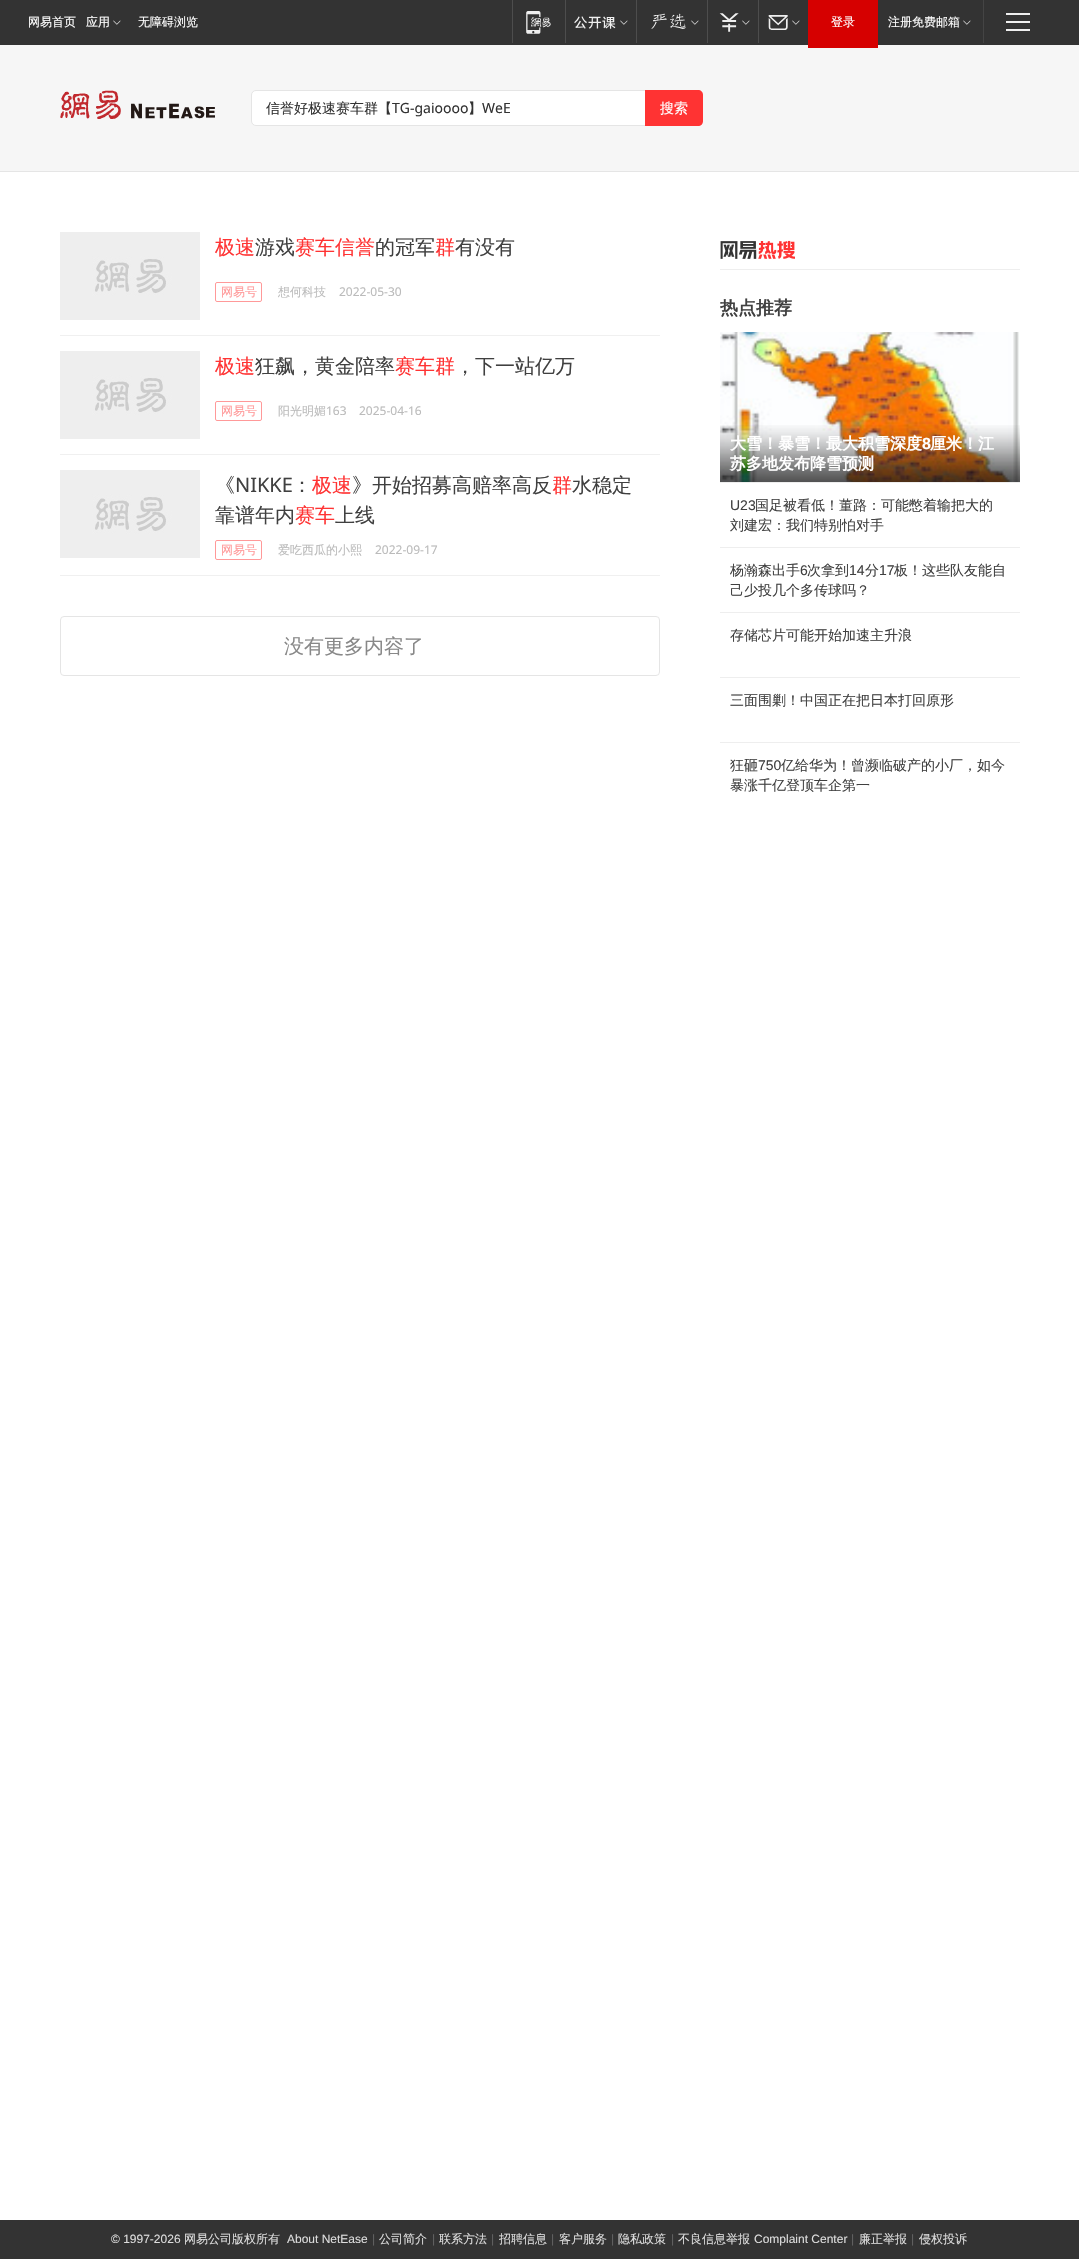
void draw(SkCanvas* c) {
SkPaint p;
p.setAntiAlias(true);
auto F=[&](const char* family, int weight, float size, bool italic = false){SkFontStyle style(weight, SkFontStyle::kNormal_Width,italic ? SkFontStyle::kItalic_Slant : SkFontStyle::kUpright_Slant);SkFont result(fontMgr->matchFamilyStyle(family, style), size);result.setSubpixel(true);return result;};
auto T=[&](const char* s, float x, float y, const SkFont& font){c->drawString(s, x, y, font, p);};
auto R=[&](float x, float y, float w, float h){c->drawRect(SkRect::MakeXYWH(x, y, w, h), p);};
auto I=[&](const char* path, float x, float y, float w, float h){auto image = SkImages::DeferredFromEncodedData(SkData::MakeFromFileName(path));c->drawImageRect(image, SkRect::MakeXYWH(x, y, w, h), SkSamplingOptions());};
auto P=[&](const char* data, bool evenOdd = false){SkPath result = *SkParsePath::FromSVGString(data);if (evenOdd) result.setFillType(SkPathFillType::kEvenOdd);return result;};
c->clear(0xffffffff);
p.setColor(0xff333333);
R(0,0,1079,45);
auto f1 = F("WenQuanYi Zen Hei",500,12);
p.setColor(0xffffffff);
T("网易首页",28,26,f1);
T("应用",86,26,f1);
I("1.png",113,20,8,5);
T("无障碍浏览",138,26,f1);
p.setColor(0xff4d4d4d);
R(512,0,1,43);
I("2.png",526,11,25,23);
R(565,0,1,43);
I("3.png",574,16,42,13);
I("1.png",620,20,8,5);
R(636,0,1,43);
I("4.png",651,13,35,16);
I("1.png",691,20,8,5);
R(707,0,1,43);
I("5.png",719,13,20,19);
I("1.png",742,20,8,5);
R(758,0,1,43);
I("6.png",768,15,20,15);
I("1.png",792,20,8,5);
p.setColor(0xfff6f6f6);
R(0,45,1079,126);
p.setColor(0xffd60000);
R(808,0,70,48);
p.setColor(0xffffffff);
T("登录",831,26,f1);
T("注册免费邮箱",888,26,f1);
I("1.png",963,20,8,5);
p.setColor(0xff444444);
R(983,0,1,43);
p.setColor(0xffefefef);
R(1006,13,24,2);
R(1006,21,24,2);
R(1006,29,24,2);
p.setColor(0xffe5e5e5);
R(0,171,1079,1);
I("7.png",60,90,155,29);
p.setColor(0xffffffff);
c->drawPath(P("M256 90.5h389.5v35h-389.5c-2.5 0-4.5-2-4.5-4.5v-26c0-2.5 2-4.5 4.5-4.5z"),p);
p.setStroke(true);
p.setStrokeWidth(1);
p.setColor(0xffe5e5e5);
c->drawPath(P("M256 90.5h389.5v35h-389.5c-2.5 0-4.5-2-4.5-4.5v-26c0-2.5 2-4.5 4.5-4.5z"),p);
auto f2 = F("WenQuanYi Zen Hei",500,14);
p.setStroke(false);
p.setColor(0xff333333);
T("信誉好极速赛车群【",266,113,f2);
auto f3 = F("Noto Sans",400,14);
T("TG-gaioooo",392,113,f3);
T("】",468,113,f2);
T("WeE",482,113,f3);
p.setColor(0xffff3333);
c->drawPath(P("M645 90h53c3 0 5 2 5 5v26c0 3-2 5-5 5h-53z"),p);
p.setColor(0xffffffff);
T("搜索",660,113,f2);
p.setColor(0xfff0f0f0);
R(60,335,600,1);
I("8.png",60,232,140,88);
auto f4 = F("WenQuanYi Zen Hei",500,20);
p.setColor(0xffff3333);
T("极速",215,254,f4);
p.setColor(0xff404040);
T("游戏",255,254,f4);
p.setColor(0xffff3333);
T("赛车信誉",295,254,f4);
p.setColor(0xff404040);
T("的冠军",375,254,f4);
p.setColor(0xffff3333);
T("群",435,254,f4);
p.setColor(0xff404040);
T("有没有",455,254,f4);
p.setStroke(true);
p.setColor(0xffff9999);
c->drawRoundRect(SkRect::MakeXYWH(215.5,282.5,46,19),1.5,1.5,p);
p.setStroke(false);
T("网易号",221,296,f1);
p.setColor(0xffbbbbbb);
T("想何科技",278,296,f1);
auto f5 = F("Noto Sans",400,12);
T("2022-05-30",339,296,f5);
p.setColor(0xfff0f0f0);
R(60,454,600,1);
I("8.png",60,351,140,88);
p.setColor(0xffff3333);
T("极速",215,373,f4);
p.setColor(0xff404040);
T("狂飙，黄金陪率",255,373,f4);
p.setColor(0xffff3333);
T("赛车群",395,373,f4);
p.setColor(0xff404040);
T("，下一站亿万",455,373,f4);
p.setStroke(true);
p.setColor(0xffff9999);
c->drawRoundRect(SkRect::MakeXYWH(215.5,401.5,46,19),1.5,1.5,p);
p.setStroke(false);
T("网易号",221,415,f1);
p.setColor(0xffbbbbbb);
T("阳光明媚",278,415,f1);
T("163",326,415,f5);
T("2025-04-16",359,415,f5);
p.setColor(0xfff0f0f0);
R(60,575,600,1);
I("8.png",60,470,140,88);
p.setColor(0xff404040);
T("《",215,492,f4);
auto f6 = F("Noto Sans",400,20);
T("NIKKE",235,492,f6);
T("：",292,492,f4);
p.setColor(0xffff3333);
T("极速",312,492,f4);
p.setColor(0xff404040);
T("》开始招募高赔率高反",352,492,f4);
p.setColor(0xffff3333);
T("群",552,492,f4);
p.setColor(0xff404040);
T("水稳定",572,492,f4);
T("靠谱年内",215,522,f4);
p.setColor(0xffff3333);
T("赛车",295,522,f4);
p.setColor(0xff404040);
T("上线",335,522,f4);
p.setStroke(true);
p.setColor(0xffff9999);
c->drawRoundRect(SkRect::MakeXYWH(215.5,540.5,46,19),1.5,1.5,p);
p.setStroke(false);
T("网易号",221,554,f1);
p.setColor(0xffbbbbbb);
T("爱吃西瓜的小熙",278,554,f1);
T("2022-09-17",375,554,f5);
p.setStroke(true);
p.setColor(0xffe5e5e5);
c->drawRoundRect(SkRect::MakeXYWH(60.5,616.5,599,59),3.5,3.5,p);
p.setStroke(false);
p.setColor(0xff888888);
T("没有更多内容了",284,653,f4);
I("9.png",720,240,75,19);
p.setColor(0xffeeeeee);
R(720,269,300,1);
auto f7 = F("WenQuanYi Zen Hei",700,18);
p.setColor(0xff404040);
T("热点推荐",720,314,f7);
p.setColor(0xffeeeeee);
R(720,482,300,1);
I("10.png",720,332,300,150);
I("11.png",720,425,300,57);
auto f8 = F("WenQuanYi Zen Hei",700,16);
p.setColor(0xffffffff);
T("大雪！暴雪！最大积雪深度",730,449,f8);
auto f9 = F("Liberation Sans",700,16);
T("8",922,449,f9);
T("厘米！江",930,449,f8);
T("苏多地发布降雪预测",730,469,f8);
p.setColor(0xffeeeeee);
R(720,547,300,1);
auto f10 = F("Liberation Sans",400,14);
p.setColor(0xff404040);
T("U23",730,510,f10);
T("国足被看低！董路：可能憋着输把大的",755,510,f2);
T("刘建宏：我们特别怕对手",730,530,f2);
p.setColor(0xffeeeeee);
R(720,612,300,1);
p.setColor(0xff404040);
T("杨瀚森出手",730,575,f2);
T("6",800,575,f10);
T("次拿到",807,575,f2);
T("14",849,575,f10);
T("分",865,575,f2);
T("17",879,575,f10);
T("板！这些队友能自",894,575,f2);
T("己少投几个多传球吗？",730,595,f2);
p.setColor(0xffeeeeee);
R(720,677,300,1);
p.setColor(0xff404040);
T("存储芯片可能开始加速主升浪",730,640,f2);
p.setColor(0xffeeeeee);
R(720,742,300,1);
p.setColor(0xff404040);
T("三面围剿！中国正在把日本打回原形",730,705,f2);
T("狂砸",730,770,f2);
T("750",758,770,f10);
T("亿给华为！曾濒临破产的小厂，如今",781,770,f2);
T("暴涨千亿登顶车企第一",730,790,f2);
p.setColor(0xff333333);
R(0,2220,1079,39);
auto f11 = F("Liberation Sans",400,12);
p.setColor(0xffdddddd);
T("© 1997-2026",111,2243,f11);
T("网易公司版权所有",184,2243,f1);
T("About NetEase",287,2243,f11);
p.setColor(0xff616161);
T("|",372,2243,f11);
p.setColor(0xffdddddd);
T("公司简介",379,2243,f1);
p.setColor(0xff616161);
T("|",432,2243,f11);
p.setColor(0xffdddddd);
T("联系方法",439,2243,f1);
p.setColor(0xff616161);
T("|",491,2243,f11);
p.setColor(0xffdddddd);
T("招聘信息",499,2243,f1);
p.setColor(0xff616161);
T("|",551,2243,f11);
p.setColor(0xffdddddd);
T("客户服务",559,2243,f1);
p.setColor(0xff616161);
T("|",611,2243,f11);
p.setColor(0xffdddddd);
T("隐私政策",618,2243,f1);
p.setColor(0xff616161);
T("|",671,2243,f11);
p.setColor(0xffdddddd);
T("不良信息举报",678,2243,f1);
T("Complaint Center",754,2243,f11);
p.setColor(0xff616161);
T("|",851,2243,f11);
p.setColor(0xffdddddd);
T("廉正举报",859,2243,f1);
p.setColor(0xff616161);
T("|",911,2243,f11);
p.setColor(0xffdddddd);
T("侵权投诉",919,2243,f1);
}
